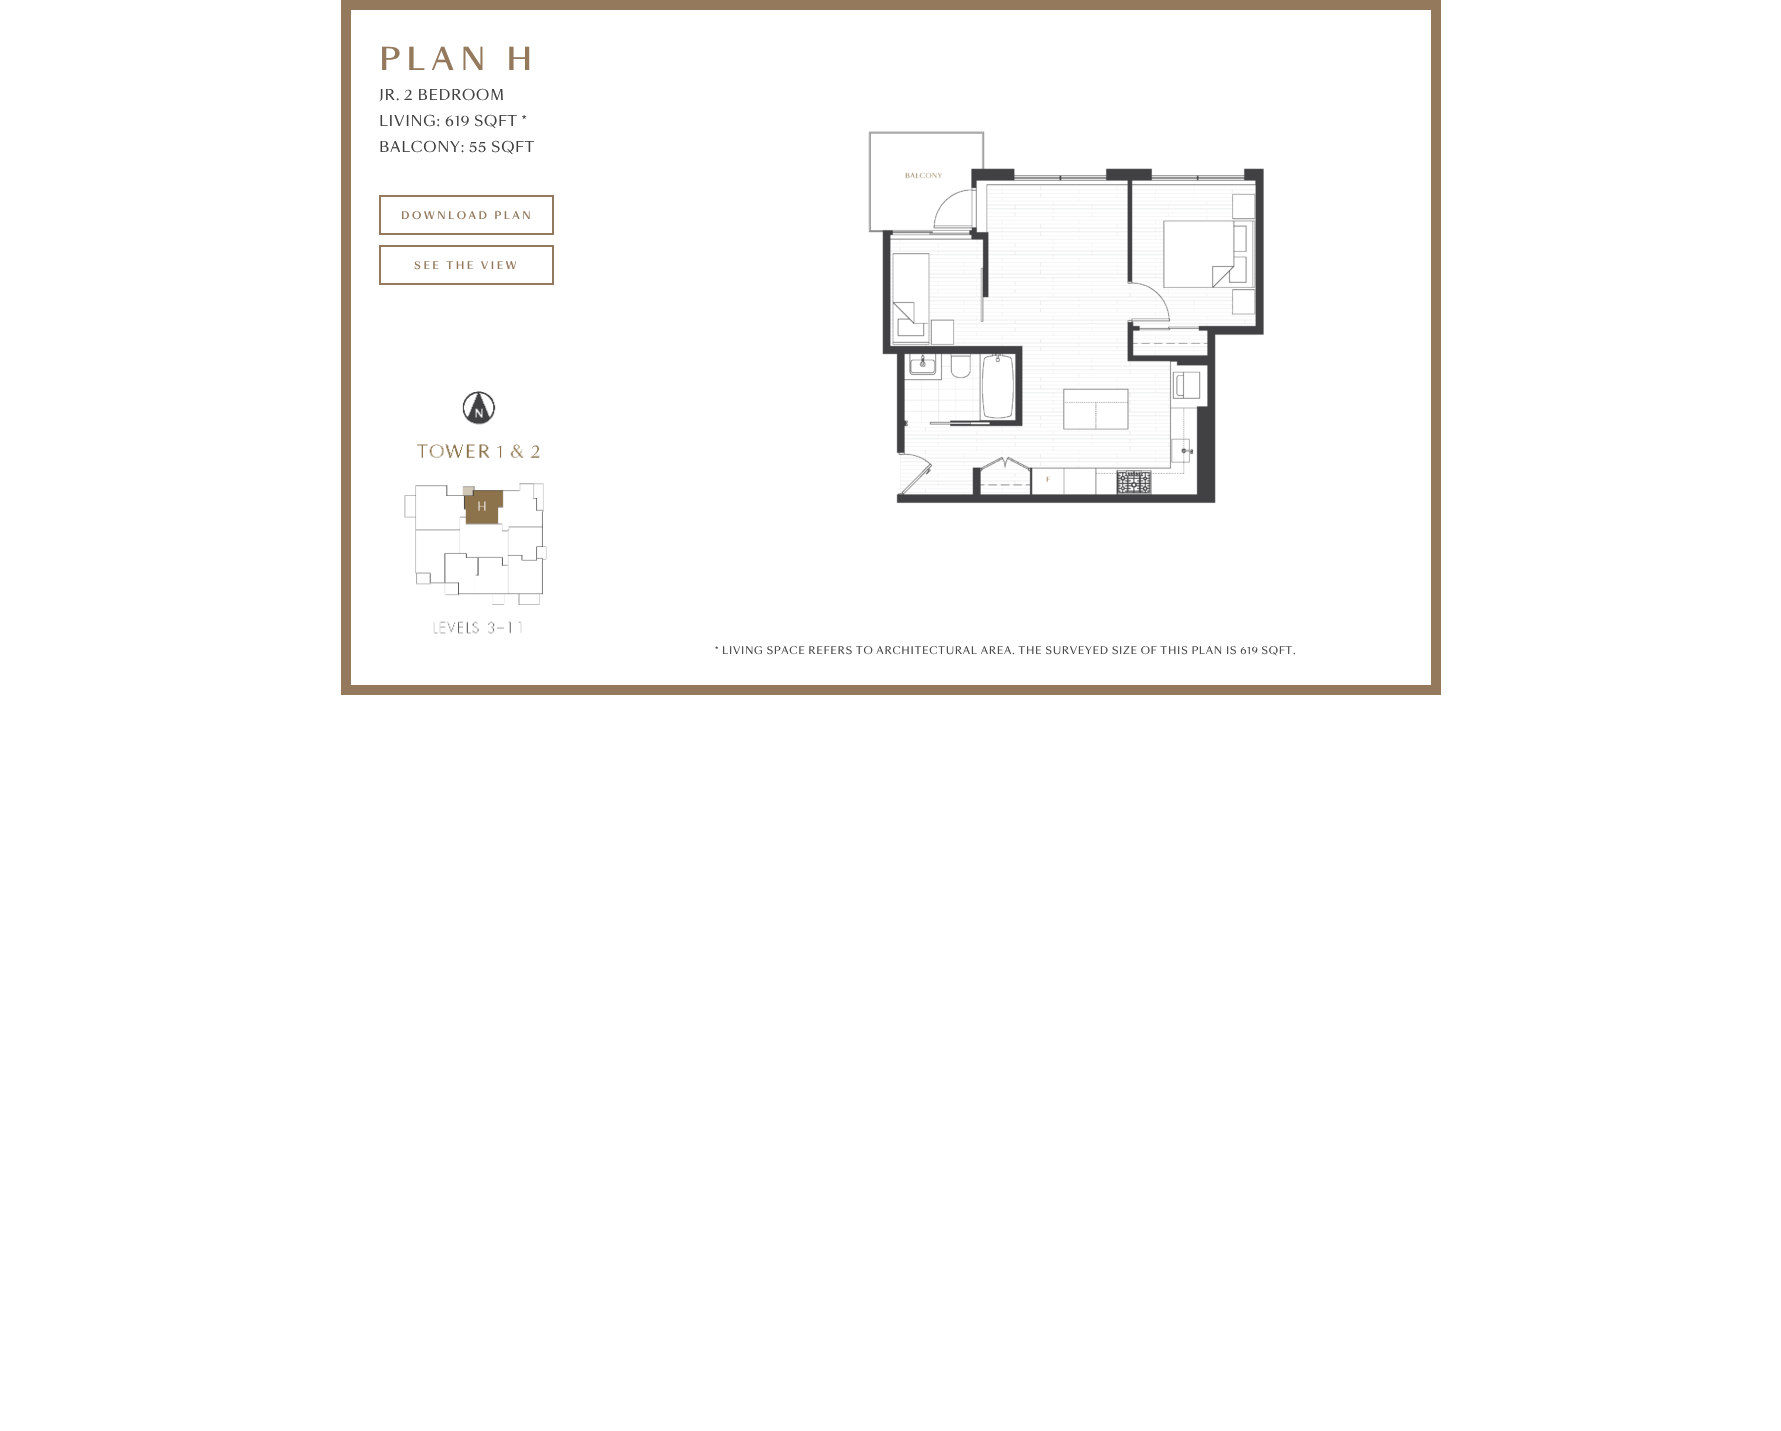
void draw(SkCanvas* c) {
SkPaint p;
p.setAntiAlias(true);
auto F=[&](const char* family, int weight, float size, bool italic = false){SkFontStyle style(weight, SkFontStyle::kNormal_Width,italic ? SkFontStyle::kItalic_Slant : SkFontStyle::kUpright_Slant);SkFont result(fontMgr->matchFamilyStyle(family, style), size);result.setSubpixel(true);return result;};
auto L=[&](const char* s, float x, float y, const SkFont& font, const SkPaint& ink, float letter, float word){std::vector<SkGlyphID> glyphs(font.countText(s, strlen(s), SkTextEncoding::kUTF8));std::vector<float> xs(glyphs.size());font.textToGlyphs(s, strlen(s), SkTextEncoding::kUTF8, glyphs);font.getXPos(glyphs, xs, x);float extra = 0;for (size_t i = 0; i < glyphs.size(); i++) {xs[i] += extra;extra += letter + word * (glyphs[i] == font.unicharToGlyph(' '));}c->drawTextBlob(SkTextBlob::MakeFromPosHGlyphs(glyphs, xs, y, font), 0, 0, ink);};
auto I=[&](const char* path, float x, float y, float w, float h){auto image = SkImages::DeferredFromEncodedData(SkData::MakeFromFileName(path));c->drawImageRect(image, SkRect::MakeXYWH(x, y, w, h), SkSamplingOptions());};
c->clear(0xffffffff);
p.setStroke(true);
p.setStrokeWidth(10);
p.setColor(0xff94795d);
c->drawRect(SkRect::MakeXYWH(346,5,1090,685),p);
auto f1 = F("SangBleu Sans",500,29.5);
p.setStroke(false);
L("PLAN H",379,70,f1,p,6.75,0);
auto f2 = F("SangBleu Sans",400,14);
p.setColor(0xff404040);
L("JR. 2 BEDROOM",379,100,f2,p,.7,0);
L("LIVING: 619 SQFT *",379,126,f2,p,.7,0);
L("BALCONY: 55 SQFT",379,152,f2,p,.7,0);
p.setStroke(true);
p.setStrokeWidth(2);
p.setColor(0xff94795d);
c->drawRect(SkRect::MakeXYWH(380,196,173,38),p);
auto f3 = F("SangBleu Sans",500,9.8);
p.setStroke(false);
L("DOWNLOAD PLAN",401,219,f3,p,2.5,0);
p.setStroke(true);
c->drawRect(SkRect::MakeXYWH(380,246,173,38),p);
p.setStroke(false);
L("SEE THE VIEW",414,269,f3,p,2.5,0);
I("1.png",404,391,143,243);
I("2.png",868,131,396,373);
auto f4 = F("SangBleu Sans",400,9.8);
p.setColor(0xff404040);
L("* LIVING SPACE REFERS TO ARCHITECTURAL AREA. THE SURVEYED SIZE OF THIS PLAN IS 619 SQFT.",715,654,f4,p,.7,0);
}
